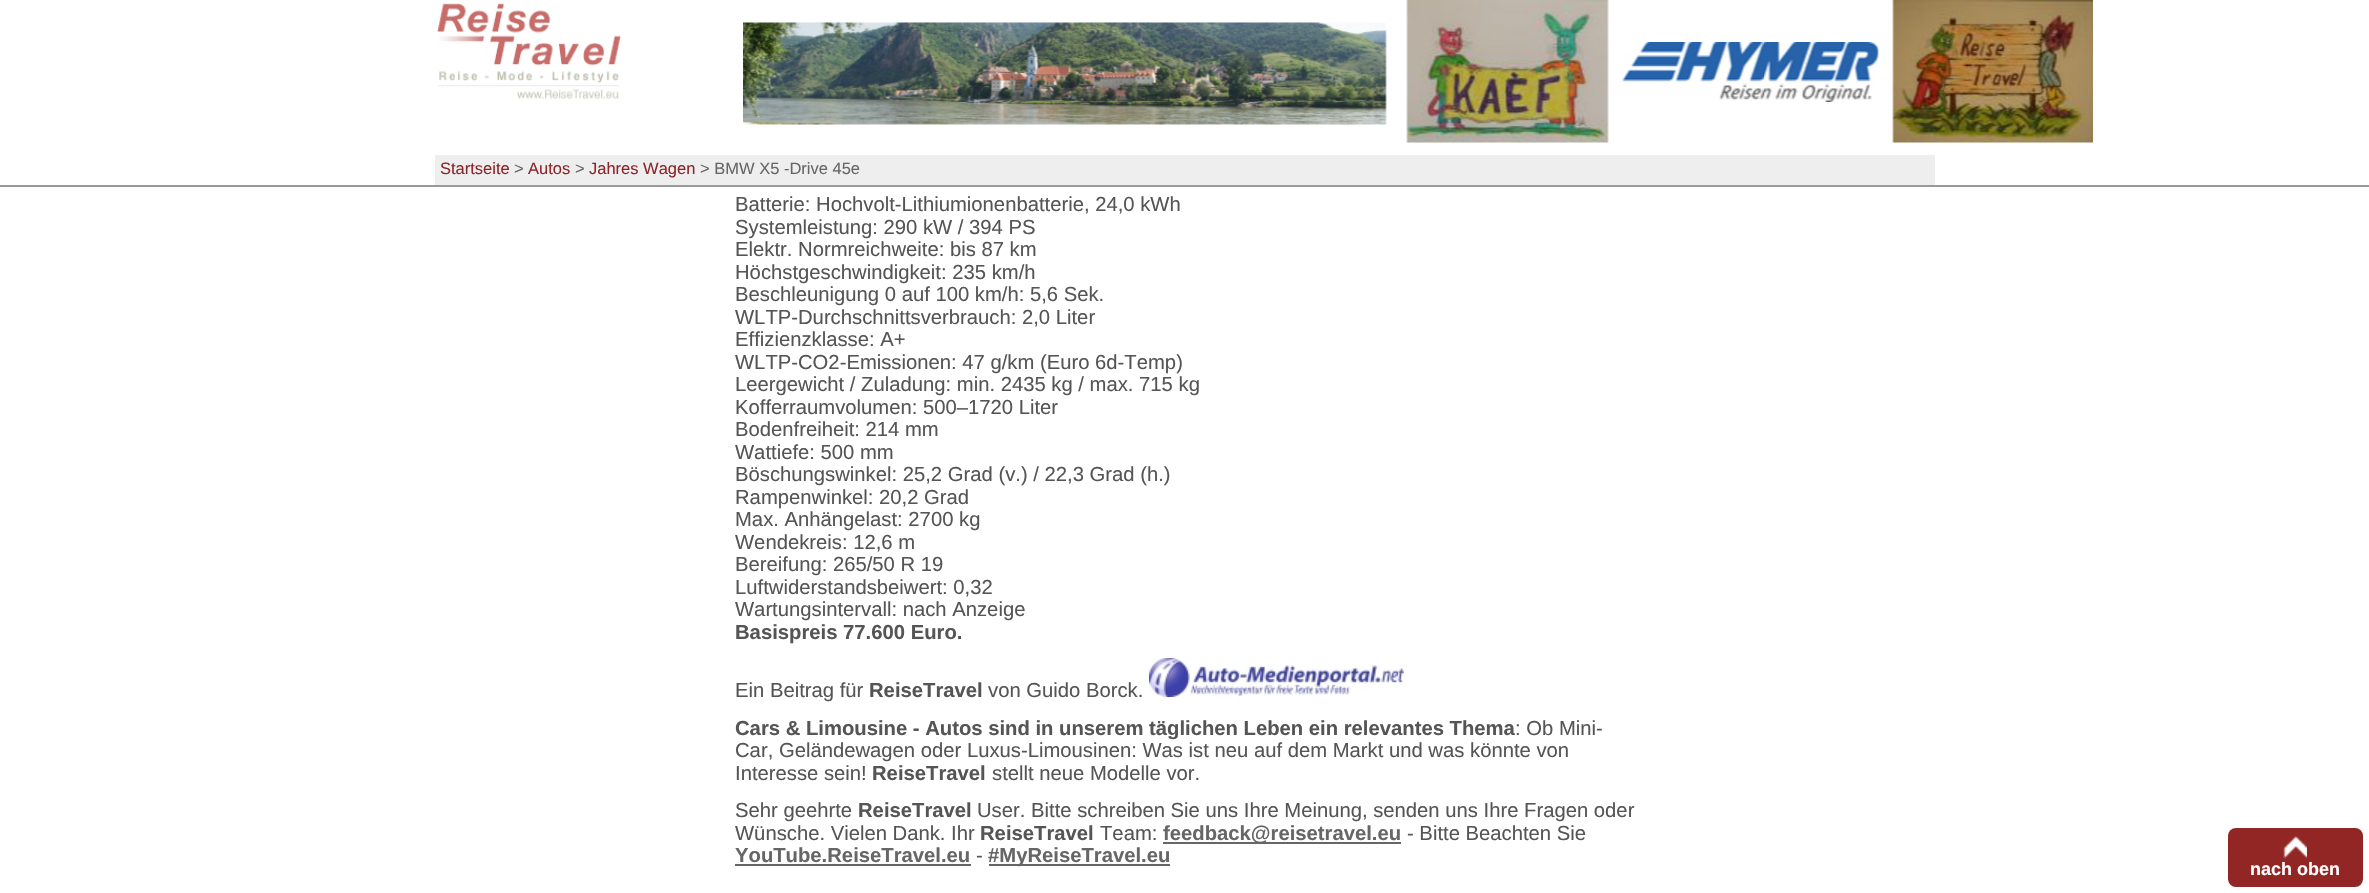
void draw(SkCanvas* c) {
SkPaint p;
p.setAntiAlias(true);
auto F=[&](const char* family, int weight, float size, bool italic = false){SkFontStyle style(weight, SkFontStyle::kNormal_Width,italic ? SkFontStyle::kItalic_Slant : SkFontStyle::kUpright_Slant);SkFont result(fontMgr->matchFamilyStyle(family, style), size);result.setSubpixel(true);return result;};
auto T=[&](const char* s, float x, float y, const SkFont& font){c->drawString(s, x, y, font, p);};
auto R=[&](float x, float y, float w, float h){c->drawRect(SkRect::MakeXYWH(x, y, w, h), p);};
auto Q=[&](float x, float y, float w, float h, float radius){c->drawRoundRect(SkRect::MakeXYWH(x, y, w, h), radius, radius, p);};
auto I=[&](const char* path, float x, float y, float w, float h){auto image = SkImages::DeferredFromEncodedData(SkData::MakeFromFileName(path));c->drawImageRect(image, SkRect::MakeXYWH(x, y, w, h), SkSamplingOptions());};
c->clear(0xffffffff);
p.setColor(0xff999999);
R(0,185,2369,2);
I("1.png",437,3,184,97);
I("2.png",743,22,644,103);
I("3.png",1406,0,203,143);
I("4.png",1622,42,257,60);
I("5.png",1892,0,201,143);
p.setColor(0xffeeeeee);
R(435,155,1500,30);
auto f1 = F("Liberation Sans",400,16.5);
p.setColor(0xff8c262c);
T("Startseite",440,174,f1);
p.setColor(0xff666666);
T(">",514,174,f1);
p.setColor(0xff8c262c);
T("Autos",528,174,f1);
p.setColor(0xff666666);
T(">",575,174,f1);
p.setColor(0xff8c262c);
T("Jahres Wagen",589,174,f1);
p.setColor(0xff666666);
T("> BMW X5 -Drive 45e",700,174,f1);
auto f2 = F("Liberation Sans",400,20.25);
p.setColor(0xff555555);
T("Batterie: Hochvolt-Lithiumionenbatterie, 24,0 kWh",735,211,f2);
T("Systemleistung: 290 kW / 394 PS",735,234,f2);
T("Elektr. Normreichweite: bis 87 km",735,256,f2);
T("Höchstgeschwindigkeit: 235 km/h",735,279,f2);
T("Beschleunigung 0 auf 100 km/h: 5,6 Sek.",735,301,f2);
T("WLTP-Durchschnittsverbrauch: 2,0 Liter",735,324,f2);
T("Effizienzklasse: A+",735,346,f2);
T("WLTP-CO2-Emissionen: 47 g/km (Euro 6d-Temp)",735,369,f2);
T("Leergewicht / Zuladung: min. 2435 kg / max. 715 kg",735,391,f2);
T("Kofferraumvolumen: 500–1720 Liter",735,414,f2);
T("Bodenfreiheit: 214 mm",735,436,f2);
T("Wattiefe: 500 mm",735,459,f2);
T("Böschungswinkel: 25,2 Grad (v.) / 22,3 Grad (h.)",735,481,f2);
T("Rampenwinkel: 20,2 Grad",735,504,f2);
T("Max. Anhängelast: 2700 kg",735,526,f2);
T("Wendekreis: 12,6 m",735,549,f2);
T("Bereifung: 265/50 R 19",735,571,f2);
T("Luftwiderstandsbeiwert: 0,32",735,594,f2);
T("Wartungsintervall: nach Anzeige",735,616,f2);
auto f3 = F("Liberation Sans",700,20.25);
T("Basispreis 77.600 Euro.",735,639,f3);
T("Ein Beitrag für",735,697,f2);
T("ReiseTravel",869,697,f3);
T("von Guido Borck.",988,697,f2);
I("6.png",1149,658,255,39);
T("Cars & Limousine - Autos sind in unserem täglichen Leben ein relevantes Thema",735,735,f3);
T(": Ob Mini-",1515,735,f2);
T("Car, Geländewagen oder Luxus-Limousinen: Was ist neu auf dem Markt und was könnte von",735,757,f2);
T("Interesse sein!",735,780,f2);
T("ReiseTravel",872,780,f3);
T("stellt neue Modelle vor.",992,780,f2);
T("Sehr geehrte",735,817,f2);
T("ReiseTravel",858,817,f3);
T("User. Bitte schreiben Sie uns Ihre Meinung, senden uns Ihre Fragen oder",977,817,f2);
T("Wünsche. Vielen Dank. Ihr",735,840,f2);
T("ReiseTravel",980,840,f3);
T("Team:",1100,840,f2);
p.setColor(0xff666666);
R(1163,842,238,2);
T("feedback@reisetravel.eu",1163,840,f3);
p.setColor(0xff555555);
T("- Bitte Beachten Sie",1407,840,f2);
p.setColor(0xff666666);
T("YouTube.ReiseTravel.eu",735,862,f3);
R(735,864,236,2);
p.setColor(0xff555555);
T("-",976,862,f2);
p.setColor(0xff666666);
R(989,864,181,2);
T("#MyReiseTravel.eu",988,862,f3);
p.setColor(0xff922624);
Q(2228,828,135,59,8);
I("7.png",2283,835,24,24);
auto f4 = F("Liberation Sans",700,18);
p.setColor(0xffffffff);
T("nach oben",2250,875,f4);
}
